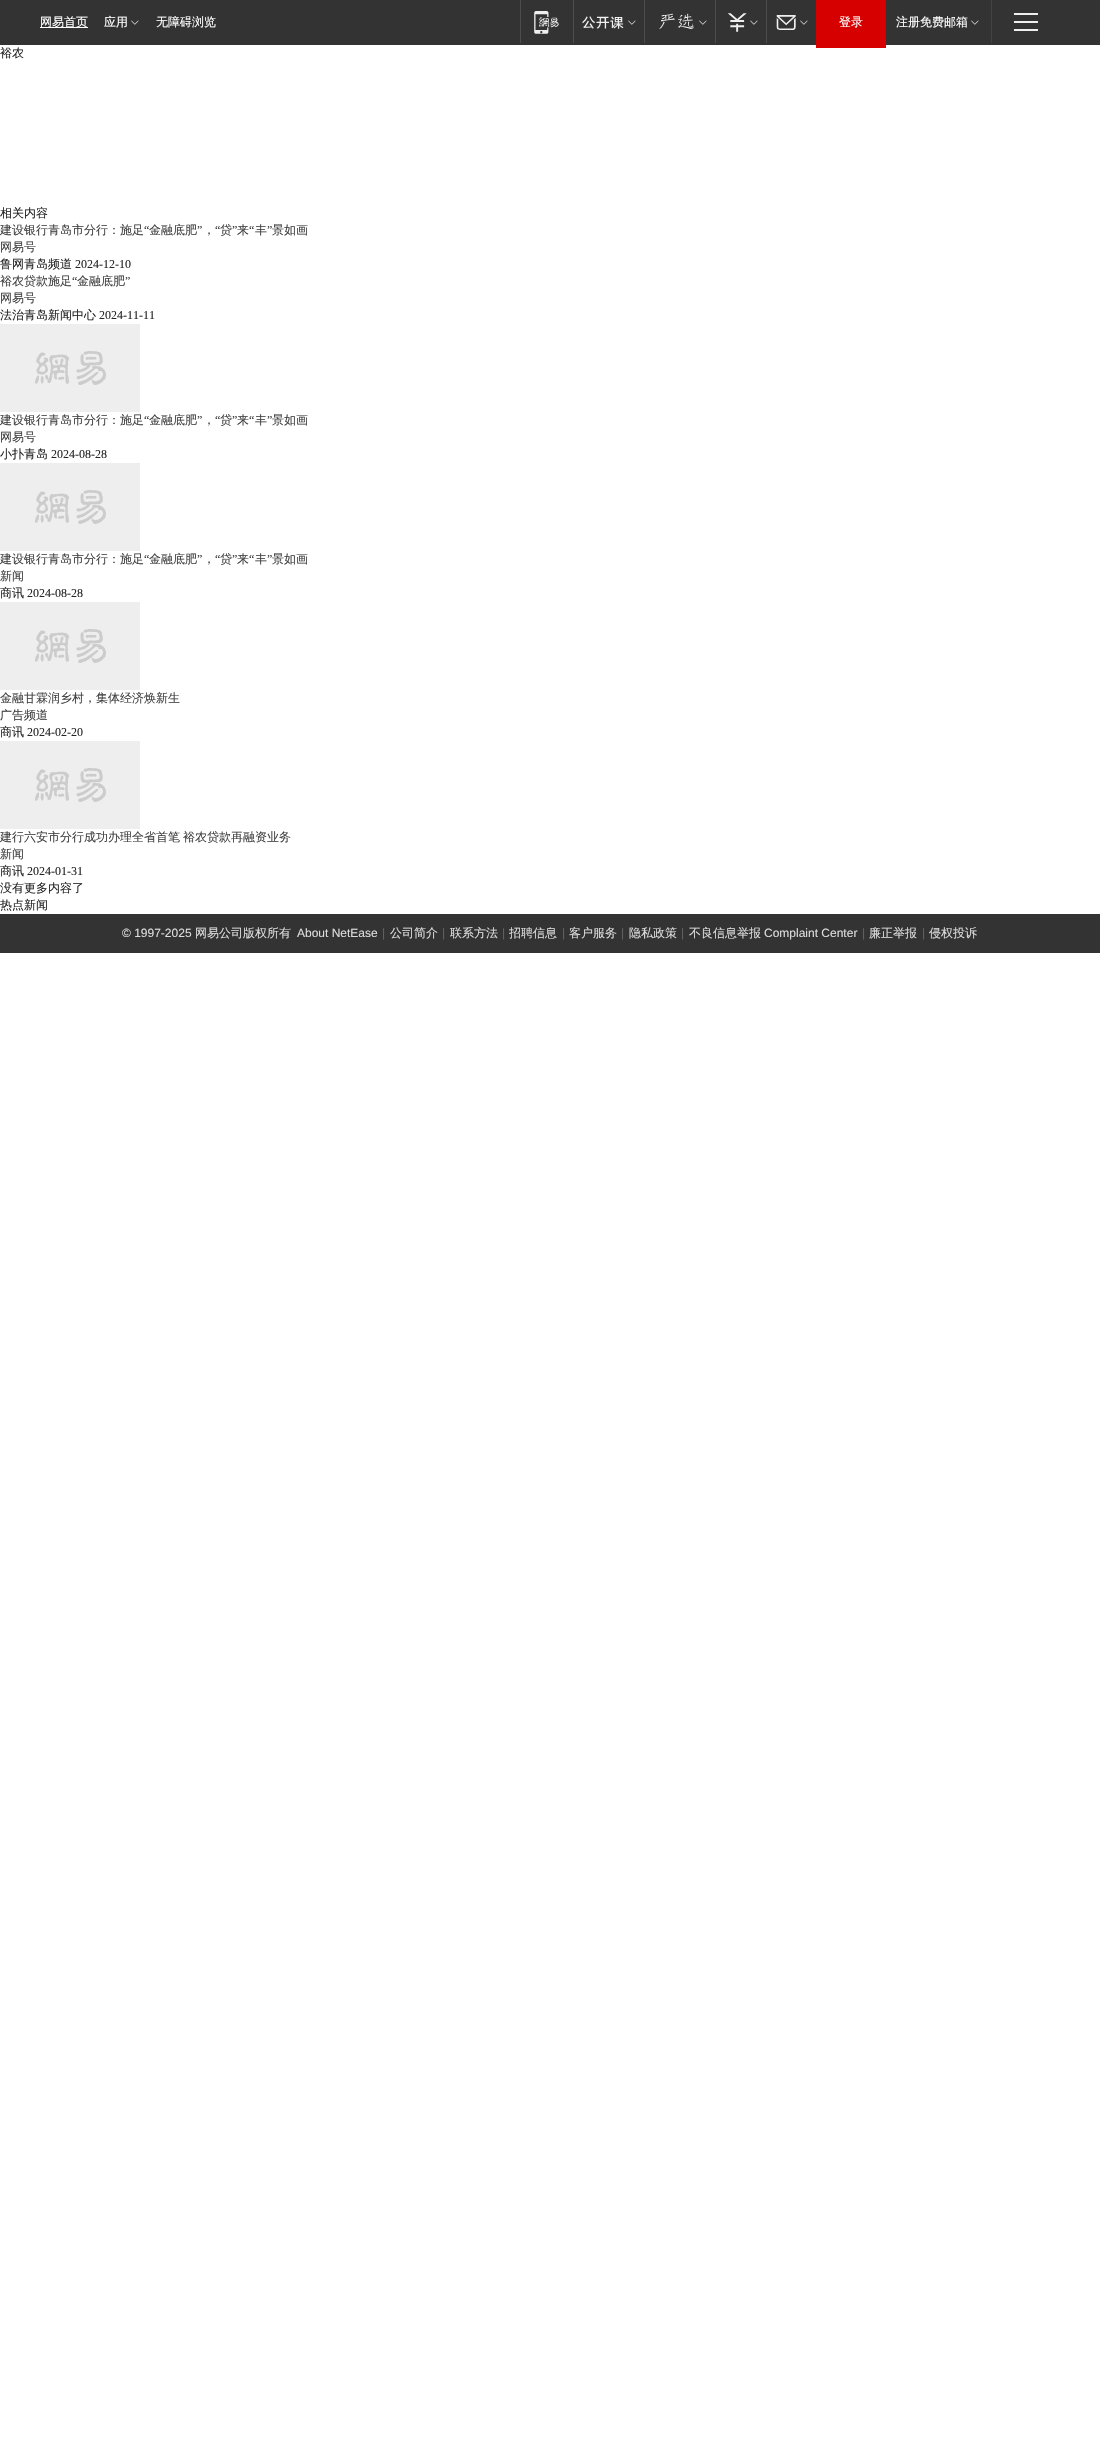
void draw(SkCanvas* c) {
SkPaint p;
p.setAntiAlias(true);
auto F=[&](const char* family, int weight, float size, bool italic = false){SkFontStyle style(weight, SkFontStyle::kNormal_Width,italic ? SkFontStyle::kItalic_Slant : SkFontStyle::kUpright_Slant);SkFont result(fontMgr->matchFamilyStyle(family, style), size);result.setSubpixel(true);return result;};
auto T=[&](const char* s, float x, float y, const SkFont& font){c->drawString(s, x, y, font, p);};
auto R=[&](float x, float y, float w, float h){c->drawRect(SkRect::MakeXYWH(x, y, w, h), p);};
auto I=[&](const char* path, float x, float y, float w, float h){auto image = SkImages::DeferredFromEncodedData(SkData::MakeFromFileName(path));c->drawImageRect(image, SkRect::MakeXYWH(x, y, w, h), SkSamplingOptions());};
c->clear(0xffffffff);
p.setColor(0xff333333);
R(0,0,1100,45);
p.setColor(0xffffffff);
R(40,27,48,1);
auto f1 = F("WenQuanYi Zen Hei",500,12);
T("网易首页",40,26,f1);
T("应用",104,26,f1);
I("1.png",131,20,8,5);
T("无障碍浏览",156,26,f1);
p.setColor(0xff4d4d4d);
R(520,0,1,43);
I("2.png",534,11,25,23);
R(573,0,1,43);
I("3.png",582,16,42,13);
I("1.png",628,20,8,5);
R(644,0,1,43);
I("4.png",659,13,35,16);
I("1.png",699,20,8,5);
R(715,0,1,43);
I("5.png",727,13,20,19);
I("1.png",750,20,8,5);
R(766,0,1,43);
I("6.png",776,15,20,15);
I("1.png",800,20,8,5);
p.setColor(0xffd60000);
R(816,0,70,48);
p.setColor(0xffffffff);
T("登录",839,26,f1);
T("注册免费邮箱",896,26,f1);
I("1.png",971,20,8,5);
p.setColor(0xff444444);
R(991,0,1,43);
p.setColor(0xffefefef);
R(1014,13,24,2);
R(1014,21,24,2);
R(1014,29,24,2);
p.setColor(0xff252525);
T("裕农",0,57,f1);
T("相关内容",0,217,f1);
p.setColor(0xff404040);
T("建设银行青岛市分行：施足",0,234,f1);
auto f2 = F("Liberation Serif",400,12);
T("“",144,234,f2);
T("金融底肥",149,234,f1);
T("”",197,234,f2);
T("“",215,234,f2);
T("贷",220,234,f1);
T("”",232,234,f2);
T("来",237,234,f1);
T("“",249,234,f2);
T("丰",255,234,f1);
T("”",267,234,f2);
T("景如画",272,234,f1);
T("，",203,234,f1);
T("网易号",0,251,f1);
p.setColor(0xff252525);
T("鲁网青岛频道",0,268,f1);
T("2024-12-10",75,268,f2);
p.setColor(0xff404040);
T("裕农贷款施足",0,285,f1);
T("“",72,285,f2);
T("金融底肥",77,285,f1);
T("”",125,285,f2);
T("网易号",0,302,f1);
p.setColor(0xff252525);
T("法治青岛新闻中心",0,319,f1);
T("2024-11-11",99,319,f2);
I("7.png",0,324,140,88);
p.setColor(0xff404040);
T("建设银行青岛市分行：施足",0,424,f1);
T("“",144,424,f2);
T("金融底肥",149,424,f1);
T("”",197,424,f2);
T("“",215,424,f2);
T("贷",220,424,f1);
T("”",232,424,f2);
T("来",237,424,f1);
T("“",249,424,f2);
T("丰",255,424,f1);
T("”",267,424,f2);
T("景如画",272,424,f1);
T("，",203,424,f1);
T("网易号",0,441,f1);
p.setColor(0xff252525);
T("小扑青岛",0,458,f1);
T("2024-08-28",51,458,f2);
I("7.png",0,463,140,88);
p.setColor(0xff404040);
T("建设银行青岛市分行：施足",0,563,f1);
T("“",144,563,f2);
T("金融底肥",149,563,f1);
T("”",197,563,f2);
T("“",215,563,f2);
T("贷",220,563,f1);
T("”",232,563,f2);
T("来",237,563,f1);
T("“",249,563,f2);
T("丰",255,563,f1);
T("”",267,563,f2);
T("景如画",272,563,f1);
T("，",203,563,f1);
T("新闻",0,580,f1);
p.setColor(0xff252525);
T("商讯",0,597,f1);
T("2024-08-28",27,597,f2);
I("7.png",0,602,140,88);
p.setColor(0xff404040);
T("金融甘霖润乡村，集体经济焕新生",0,702,f1);
T("广告频道",0,719,f1);
p.setColor(0xff252525);
T("商讯",0,736,f1);
T("2024-02-20",27,736,f2);
I("7.png",0,741,140,88);
p.setColor(0xff404040);
T("建行六安市分行成功办理全省首笔",0,841,f1);
T("裕农贷款再融资业务",183,841,f1);
T("新闻",0,858,f1);
p.setColor(0xff252525);
T("商讯",0,875,f1);
T("2024-01-31",27,875,f2);
T("没有更多内容了",0,892,f1);
T("热点新闻",0,909,f1);
p.setColor(0xff333333);
R(0,914,1100,39);
auto f3 = F("Liberation Sans",400,12);
p.setColor(0xffdddddd);
T("© 1997-2025",122,937,f3);
T("网易公司版权所有",195,937,f1);
T("About NetEase",297,937,f3);
p.setColor(0xff616161);
T("|",382,937,f3);
p.setColor(0xffdddddd);
T("公司简介",390,937,f1);
p.setColor(0xff616161);
T("|",442,937,f3);
p.setColor(0xffdddddd);
T("联系方法",450,937,f1);
p.setColor(0xff616161);
T("|",502,937,f3);
p.setColor(0xffdddddd);
T("招聘信息",509,937,f1);
p.setColor(0xff616161);
T("|",562,937,f3);
p.setColor(0xffdddddd);
T("客户服务",569,937,f1);
p.setColor(0xff616161);
T("|",621,937,f3);
p.setColor(0xffdddddd);
T("隐私政策",629,937,f1);
p.setColor(0xff616161);
T("|",681,937,f3);
p.setColor(0xffdddddd);
T("不良信息举报",689,937,f1);
T("Complaint Center",764,937,f3);
p.setColor(0xff616161);
T("|",862,937,f3);
p.setColor(0xffdddddd);
T("廉正举报",869,937,f1);
p.setColor(0xff616161);
T("|",922,937,f3);
p.setColor(0xffdddddd);
T("侵权投诉",929,937,f1);
}
